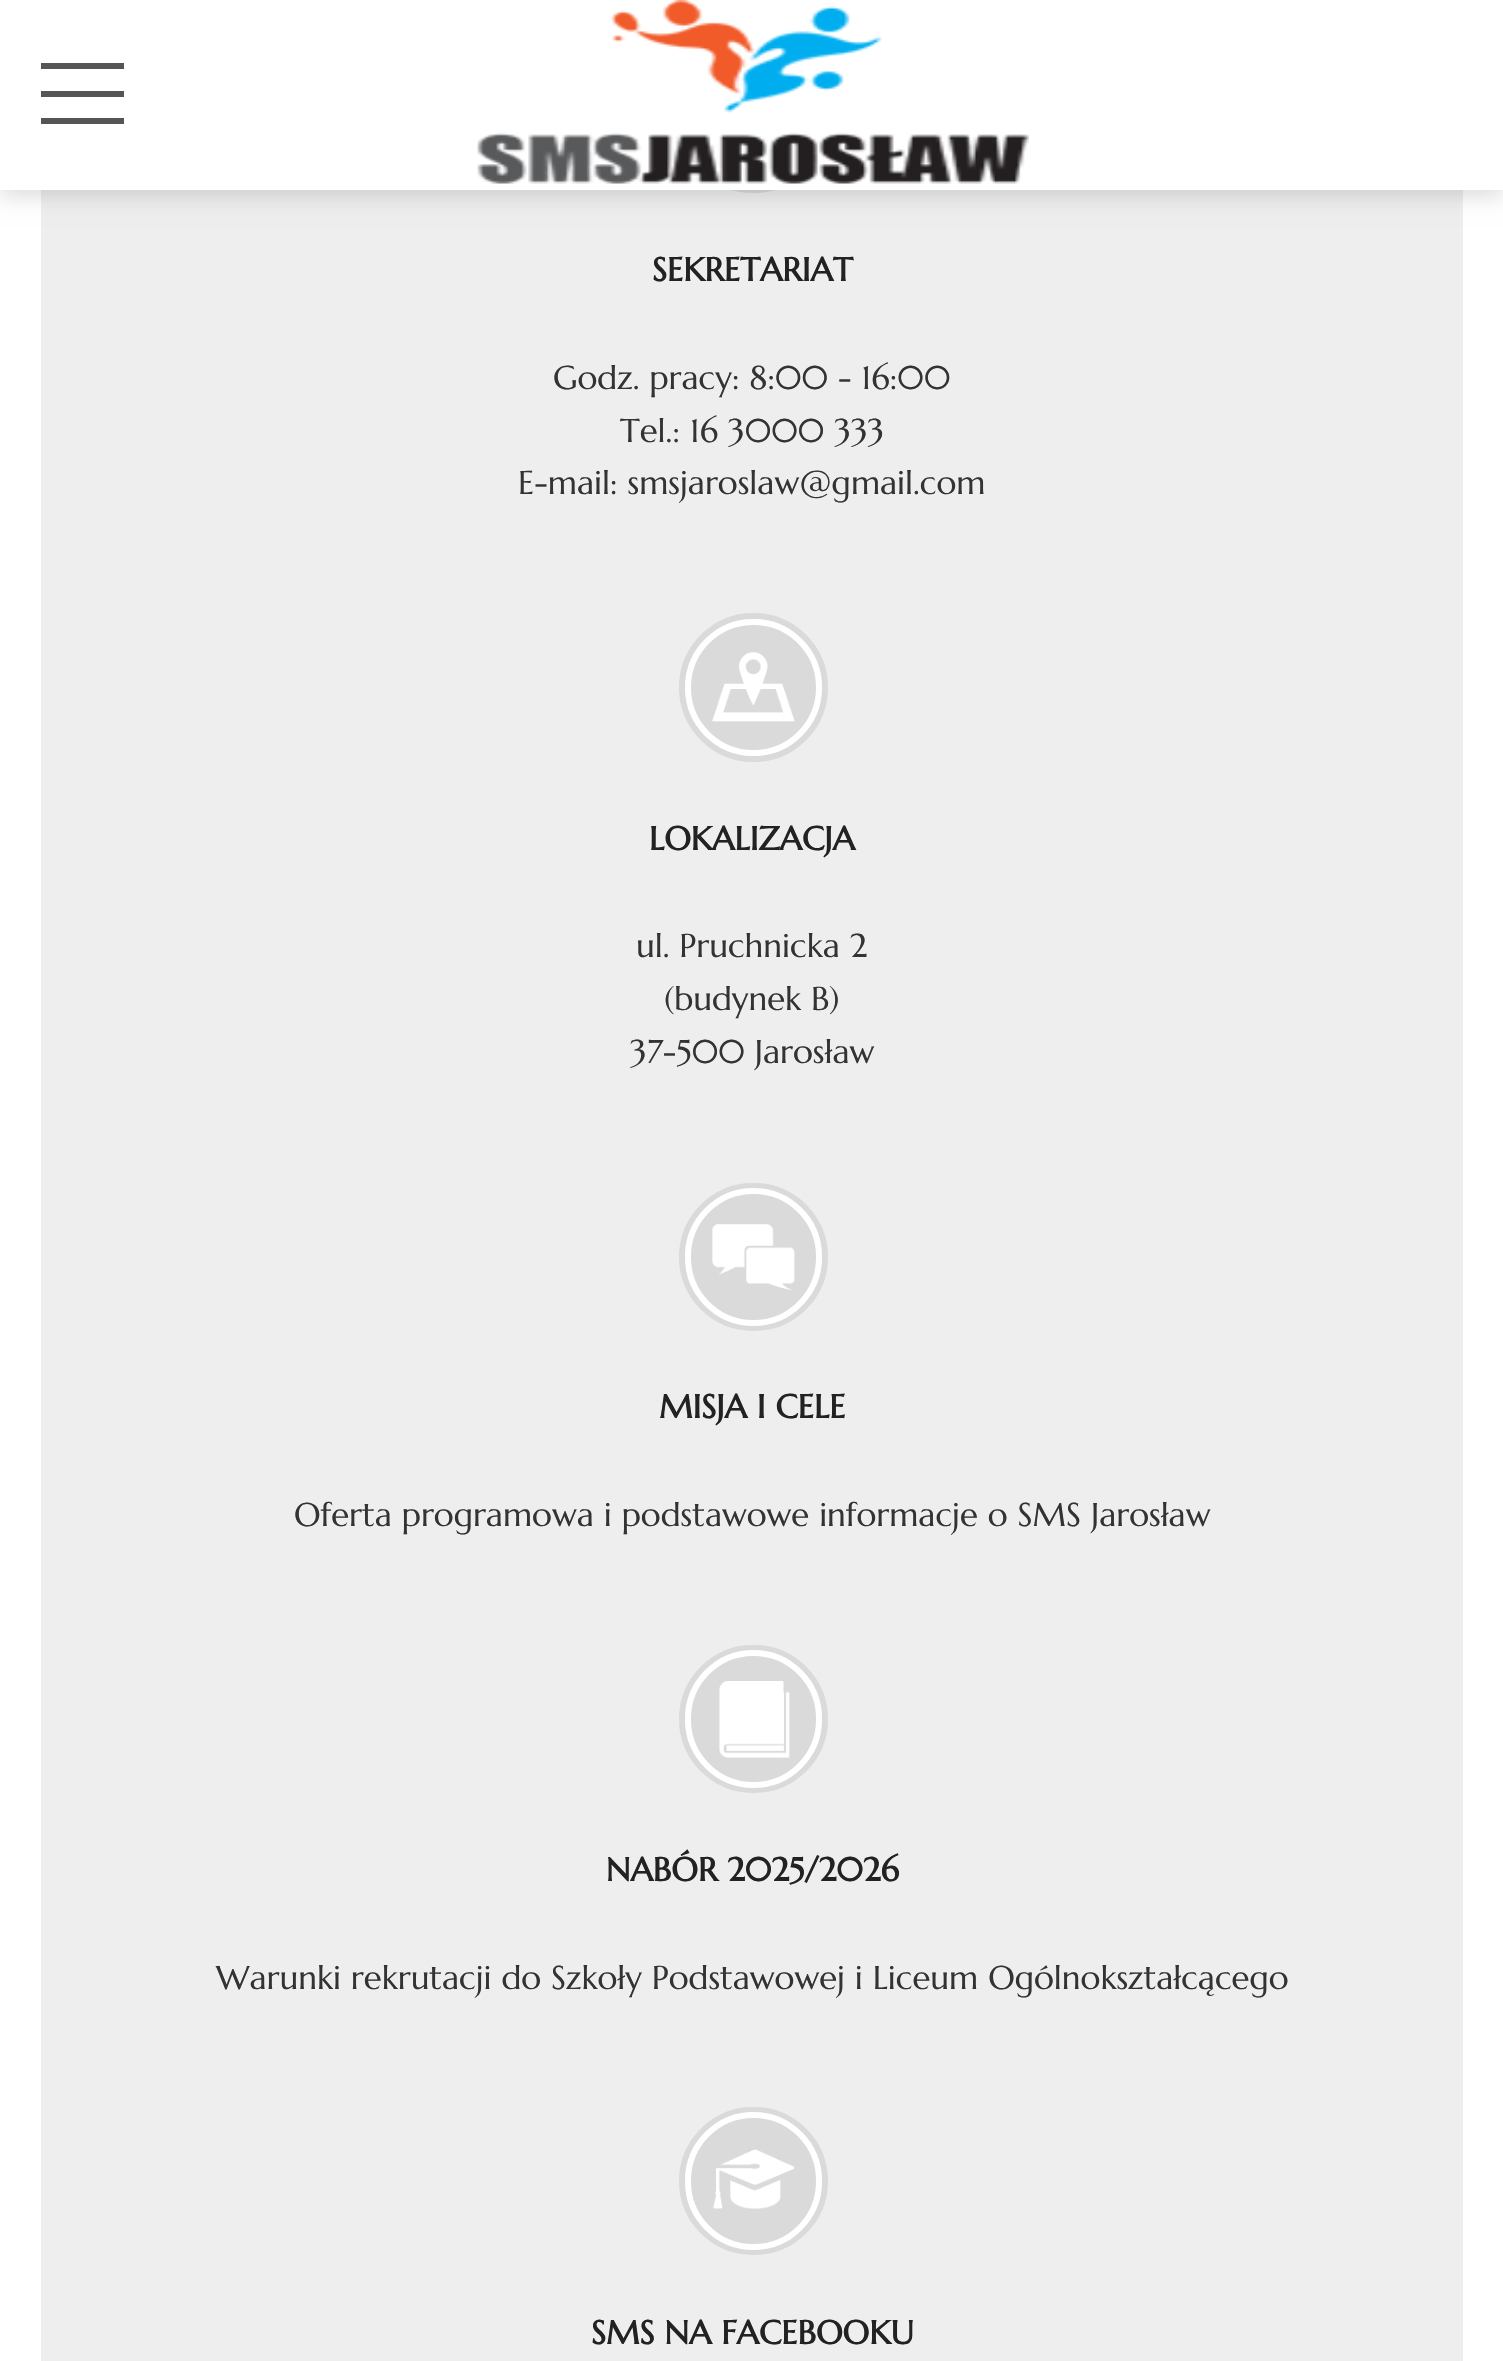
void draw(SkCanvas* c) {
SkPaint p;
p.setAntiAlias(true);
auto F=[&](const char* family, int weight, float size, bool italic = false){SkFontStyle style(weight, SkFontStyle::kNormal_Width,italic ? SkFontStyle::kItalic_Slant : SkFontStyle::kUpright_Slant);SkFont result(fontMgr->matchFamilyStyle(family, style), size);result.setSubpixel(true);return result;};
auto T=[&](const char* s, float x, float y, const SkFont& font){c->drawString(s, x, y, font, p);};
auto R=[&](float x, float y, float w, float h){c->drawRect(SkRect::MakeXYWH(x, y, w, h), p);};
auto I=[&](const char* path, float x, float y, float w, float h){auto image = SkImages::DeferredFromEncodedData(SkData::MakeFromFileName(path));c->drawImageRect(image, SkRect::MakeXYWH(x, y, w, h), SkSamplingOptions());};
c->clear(0xffffffff);
p.setColor(0xffeeeeee);
R(41,190,1422,2171);
p.setStroke(true);
p.setStrokeWidth(6);
p.setColor(0xffdadada);
c->drawCircle(753.5,118.5,71.5,p);
p.setStroke(false);
p.setColor(0x26000000);
p.setMaskFilter(SkMaskFilter::MakeBlur(kNormal_SkBlurStyle, 11));
c->drawRect(SkRect::MakeXYWH(0,6,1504,189),p);
p.setMaskFilter(nullptr);
p.setColor(0xffffffff);
R(0,0,1503,190);
p.setColor(0xff555555);
R(41,63,83,6);
R(41,91,83,6);
R(41,118,83,6);
I("1.png",477,0,552,184);
auto f1 = F("Marcellus",700,33);
p.setColor(0xff222222);
T("SEKRETARIAT",652,281,f1);
auto f2 = F("Marcellus",400,33);
p.setColor(0xff333333);
T("Godz. pracy: 8:00 - 16:00",553,389,f2);
T("Tel.: 16 3000 333",620,442,f2);
T("E-mail: smsjaroslaw@gmail.com",518,494,f2);
p.setStroke(true);
p.setColor(0xffdadada);
c->drawCircle(753.5,687.5,71.5,p);
p.setStroke(false);
c->drawCircle(753.5,687.5,65.5,p);
p.setStroke(true);
p.setColor(0xffffffff);
c->drawCircle(753.5,687.5,65.5,p);
I("2.png",712,652,83,70);
p.setStroke(false);
p.setColor(0xff222222);
T("LOKALIZACJA",649,850,f1);
p.setColor(0xff333333);
T("ul. Pruchnicka 2",636,957,f2);
T("(budynek B)",664,1010,f2);
T("37-500 Jarosław",630,1063,f2);
p.setStroke(true);
p.setColor(0xffdadada);
c->drawRoundRect(SkRect::MakeXYWH(682,1186,143,142),71,71,p);
p.setStroke(false);
c->drawRoundRect(SkRect::MakeXYWH(688,1191,131,132),65.5,65.5,p);
p.setStroke(true);
p.setColor(0xffffffff);
c->drawRoundRect(SkRect::MakeXYWH(688,1191,131,132),65.5,65.5,p);
I("3.png",712,1224,83,67);
p.setStroke(false);
p.setColor(0xff222222);
T("MISJA I CELE",659,1418,f1);
p.setColor(0xff333333);
T("Oferta programowa i podstawowe informacje o SMS Jarosław",294,1526,f2);
p.setStroke(true);
p.setColor(0xffdadada);
c->drawRoundRect(SkRect::MakeXYWH(682,1648,143,142),71,71,p);
p.setStroke(false);
c->drawRoundRect(SkRect::MakeXYWH(688,1653,131,132),65.5,65.5,p);
p.setStroke(true);
p.setColor(0xffffffff);
c->drawRoundRect(SkRect::MakeXYWH(688,1653,131,132),65.5,65.5,p);
I("4.png",719,1681,71,77);
p.setStroke(false);
p.setColor(0xff222222);
T("NABÓR 2025/2026",606,1881,f1);
p.setColor(0xff333333);
T("Warunki rekrutacji do Szkoły Podstawowej i Liceum Ogólnokształcącego",216,1989,f2);
p.setStroke(true);
p.setColor(0xffdadada);
c->drawRoundRect(SkRect::MakeXYWH(682,2110,143,142),71,71,p);
p.setStroke(false);
c->drawRoundRect(SkRect::MakeXYWH(688,2115,131,132),65.5,65.5,p);
p.setStroke(true);
p.setColor(0xffffffff);
c->drawRoundRect(SkRect::MakeXYWH(688,2115,131,132),65.5,65.5,p);
I("5.png",713,2149,82,60);
p.setStroke(false);
p.setColor(0xff222222);
T("SMS NA FACEBOOKU",591,2344,f1);
}
